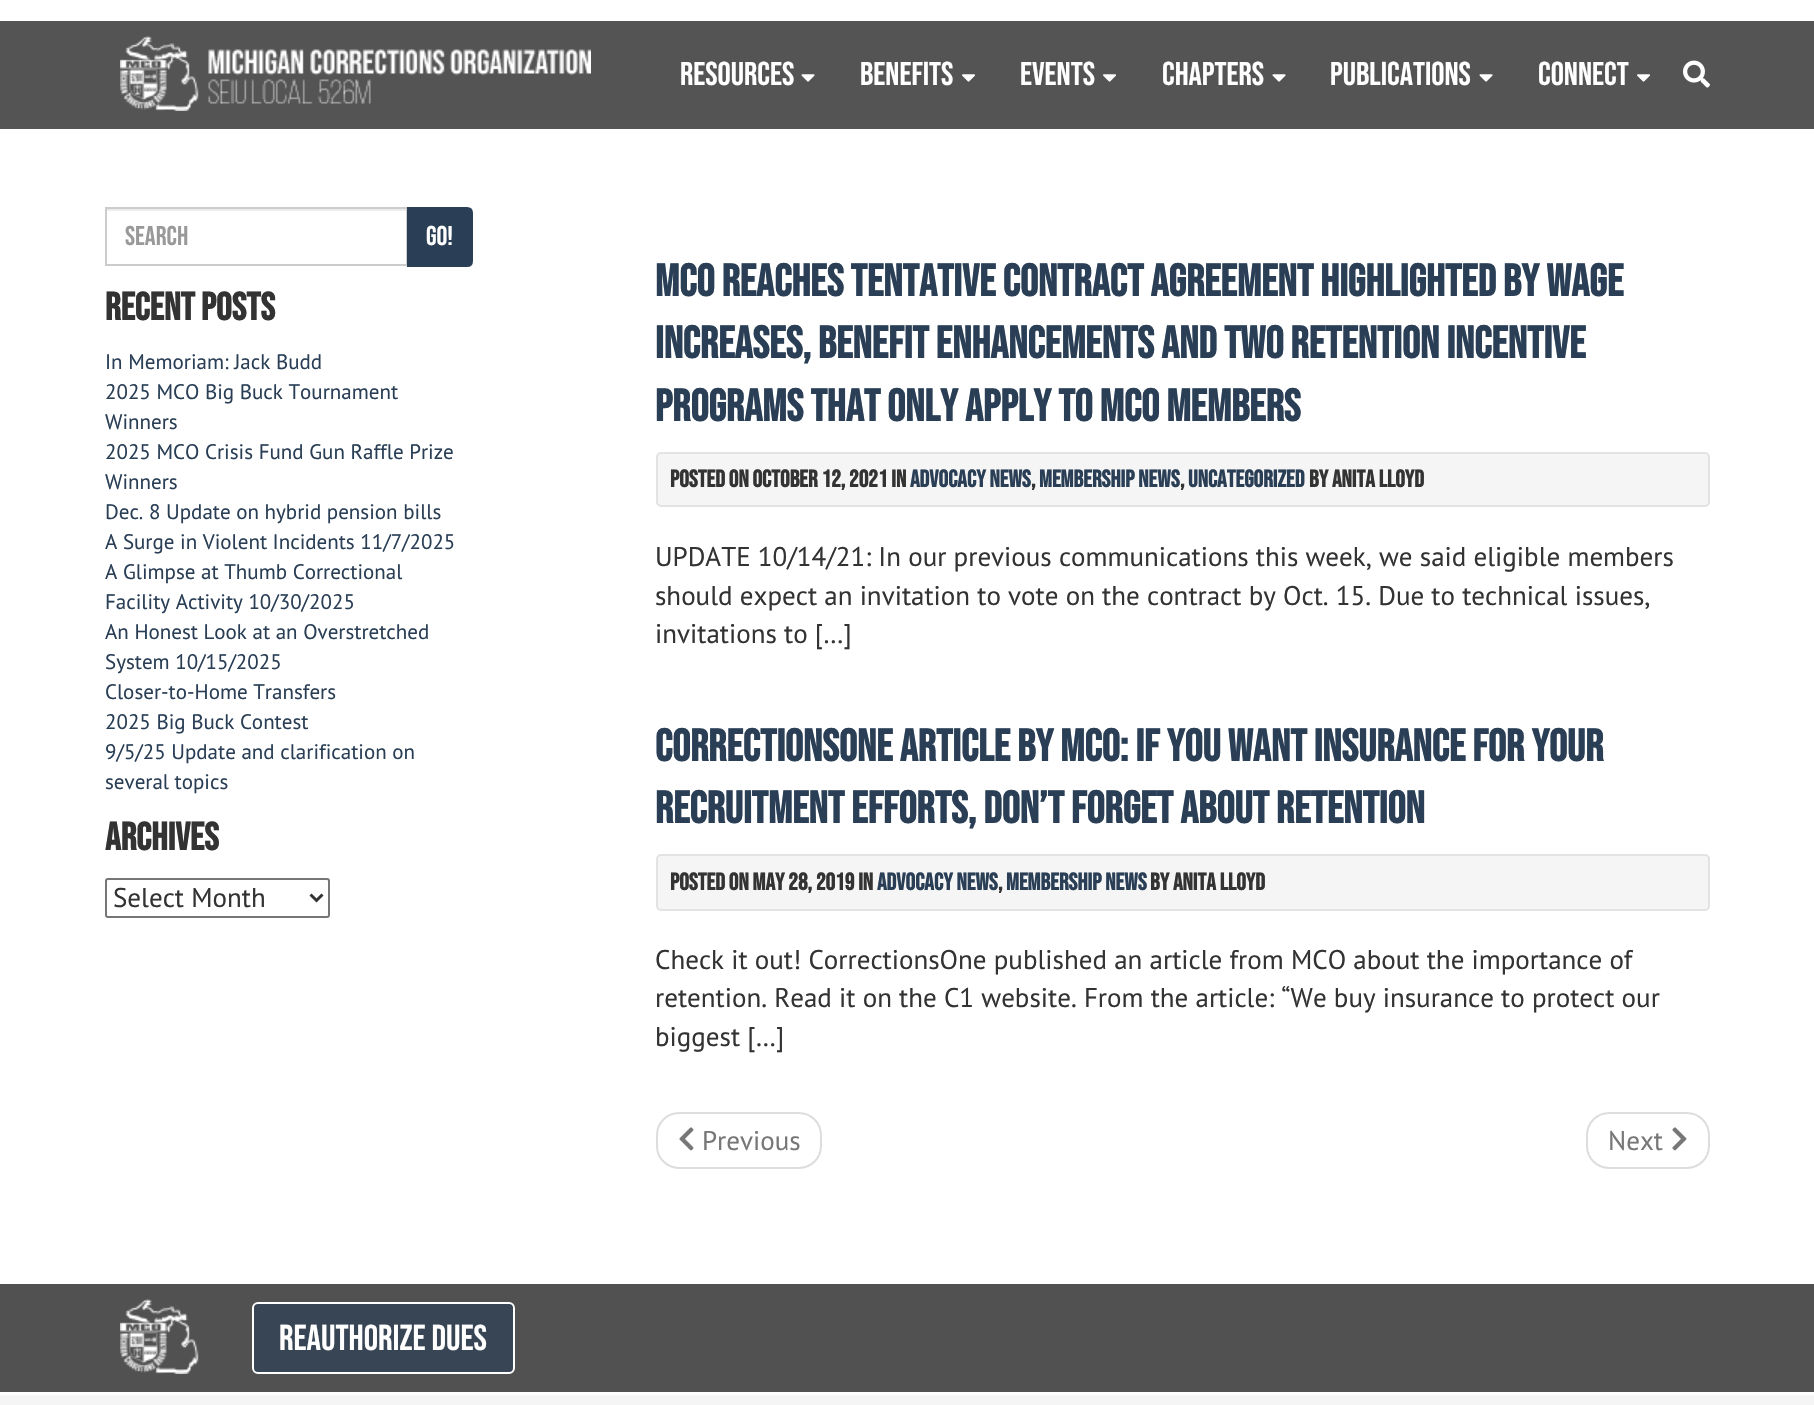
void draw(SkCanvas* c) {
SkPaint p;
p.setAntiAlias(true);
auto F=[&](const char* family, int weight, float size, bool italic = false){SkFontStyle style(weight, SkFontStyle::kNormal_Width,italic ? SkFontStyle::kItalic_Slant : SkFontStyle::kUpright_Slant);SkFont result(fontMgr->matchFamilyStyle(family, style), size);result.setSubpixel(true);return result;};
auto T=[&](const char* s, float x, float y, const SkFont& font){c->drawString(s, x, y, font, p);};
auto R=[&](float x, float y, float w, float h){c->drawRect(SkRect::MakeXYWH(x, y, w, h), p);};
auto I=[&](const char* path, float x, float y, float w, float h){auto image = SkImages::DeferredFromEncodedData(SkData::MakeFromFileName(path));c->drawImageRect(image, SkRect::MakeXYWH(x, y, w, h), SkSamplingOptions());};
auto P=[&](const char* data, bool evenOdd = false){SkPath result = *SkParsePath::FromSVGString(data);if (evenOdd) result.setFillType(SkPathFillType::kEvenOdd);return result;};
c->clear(0xffffffff);
p.setColor(0xff545454);
R(0,21,1814,108);
I("1.png",120,36,471,75);
I("2.png",1683,60,27,28);
auto f1 = F("Bebas Neue",400,33);
p.setColor(0xffffffff);
T("Resources",680,85,f1);
I("3.png",801,74,14,8);
T("Benefits",860,85,f1);
I("4.png",962,74,13,8);
T("Events",1020,85,f1);
I("4.png",1103,74,13,8);
T("Chapters",1162,85,f1);
I("3.png",1272,74,14,8);
T("Publications",1330,85,f1);
I("3.png",1479,74,14,8);
T("Connect",1538,85,f1);
I("4.png",1637,74,13,8);
p.setColor(0xffececec);
R(107,209,300,2);
p.setStroke(true);
p.setStrokeWidth(2);
p.setColor(0xffcccccc);
c->drawRect(SkRect::MakeXYWH(106,208,301,57),p);
auto f2 = F("Bebas Neue",400,27);
p.setStroke(false);
p.setColor(0xff999999);
T("Search",125,245,f2);
p.setColor(0xff2a3f56);
c->drawPath(P("M408 208h59c3 0 5 2 5 5v48c0 3-2 5-5 5h-59z"),p);
p.setStroke(true);
c->drawPath(P("M408 208h59c3 0 5 2 5 5v48c0 3-2 5-5 5h-59z"),p);
p.setStroke(false);
p.setColor(0xffffffff);
T("Go!",426,245,f2);
auto f3 = F("Bebas Neue",700,39);
p.setColor(0xff333333);
T("Recent Posts",105,320,f3);
auto f4 = F("PT Sans",400,21);
p.setColor(0xff2a3f56);
T("In Memoriam: Jack Budd",105,369,f4);
T("2025 MCO Big Buck Tournament",105,399,f4);
T("Winners",105,429,f4);
T("2025 MCO Crisis Fund Gun Raffle Prize",105,459,f4);
T("Winners",105,489,f4);
T("Dec. 8 Update on hybrid pension bills",105,519,f4);
T("A Surge in Violent Incidents 11/7/2025",105,549,f4);
T("A Glimpse at Thumb Correctional",105,579,f4);
T("Facility Activity 10/30/2025",105,609,f4);
T("An Honest Look at an Overstretched",105,639,f4);
T("System 10/15/2025",105,669,f4);
T("Closer-to-Home Transfers",105,699,f4);
T("2025 Big Buck Contest",105,729,f4);
T("9/5/25 Update and clarification on",105,759,f4);
T("several topics",105,789,f4);
p.setColor(0xff333333);
T("Archives",105,850,f3);
p.setStroke(true);
p.setColor(0xff767676);
c->drawRoundRect(SkRect::MakeXYWH(106,879,223,38),2,2,p);
p.setStrokeWidth(3);
p.setColor(0xff333333);
c->drawPath(P("M310.5 894.5l6 6l6-6"),p);
auto f5 = F("PT Sans",400,27);
p.setStroke(false);
T("Select Month",113,907,f5);
auto f6 = F("Bebas Neue",700,45);
p.setColor(0xff2a3f56);
T("MCO reaches tentative contract agreement highlighted by wage",655,296,f6);
T("increases, benefit enhancements and two retention incentive",655,358,f6);
T("programs that only apply to MCO members",655,421,f6);
p.setColor(0xfff5f5f5);
c->drawRoundRect(SkRect::MakeXYWH(657,453,1052,53),4,4,p);
p.setStroke(true);
p.setStrokeWidth(2);
p.setColor(0xffe3e3e3);
c->drawRoundRect(SkRect::MakeXYWH(657,453,1052,53),4,4,p);
auto f7 = F("Bebas Neue",700,24);
p.setStroke(false);
p.setColor(0xff333333);
T("Posted on October 12, 2021 in",670,487,f7);
p.setColor(0xff2a3f56);
T("Advocacy News",910,487,f7);
p.setColor(0xff333333);
T(",",1031,487,f7);
p.setColor(0xff2a3f56);
T("Membership News",1039,487,f7);
p.setColor(0xff333333);
T(",",1180,487,f7);
p.setColor(0xff2a3f56);
T("Uncategorized",1188,487,f7);
p.setColor(0xff333333);
T("by Anita Lloyd",1309,487,f7);
T("UPDATE 10/14/21: In our previous communications this week, we said eligible members",655,566,f5);
T("should expect an invitation to vote on the contract by Oct. 15. Due to technical issues,",655,605,f5);
T("invitations to […]",655,643,f5);
p.setColor(0xff2a3f56);
T("CorrectionsOne article by MCO: If you want insurance for your",655,761,f6);
T("recruitment efforts, don’t forget about retention",655,823,f6);
p.setColor(0xfff5f5f5);
c->drawRoundRect(SkRect::MakeXYWH(657,855,1052,55),4,4,p);
p.setStroke(true);
p.setColor(0xffe3e3e3);
c->drawRoundRect(SkRect::MakeXYWH(657,855,1052,55),4,4,p);
p.setStroke(false);
p.setColor(0xff333333);
T("Posted on May 28, 2019 in",670,890,f7);
p.setColor(0xff2a3f56);
T("Advocacy News",877,890,f7);
p.setColor(0xff333333);
T(",",998,890,f7);
p.setColor(0xff2a3f56);
T("Membership News",1006,890,f7);
p.setColor(0xff333333);
T("by Anita Lloyd",1150,890,f7);
T("Check it out! CorrectionsOne published an article from MCO about the importance of",655,969,f5);
T("retention. Read it on the C1 website. From the article: “We buy insurance to protect our",655,1007,f5);
T("biggest […]",655,1046,f5);
p.setStroke(true);
p.setColor(0xffdddddd);
c->drawRoundRect(SkRect::MakeXYWH(657,1113,164,55),22,22,p);
I("5.png",679,1127,15,24);
p.setStroke(false);
p.setColor(0xff777777);
T("Previous",702,1150,f5);
p.setStroke(true);
p.setColor(0xffdddddd);
c->drawRoundRect(SkRect::MakeXYWH(1587,1113,122,55),22,22,p);
p.setStroke(false);
p.setColor(0xff777777);
T("Next",1608,1150,f5);
I("6.png",1672,1127,15,24);
p.setColor(0xfff5f5f5);
R(0,1395,1814,10);
p.setColor(0xff515151);
R(0,1284,1814,108);
I("7.png",120,1299,79,75);
p.setColor(0xff384554);
c->drawRoundRect(SkRect::MakeXYWH(253,1303,261,70),5,5,p);
p.setStroke(true);
p.setColor(0xffffffff);
c->drawRoundRect(SkRect::MakeXYWH(253,1303,261,70),5,5,p);
auto f8 = F("Bebas Neue",400,36);
p.setStroke(false);
T("REAUTHORIZE DUES",279,1350,f8);
}
